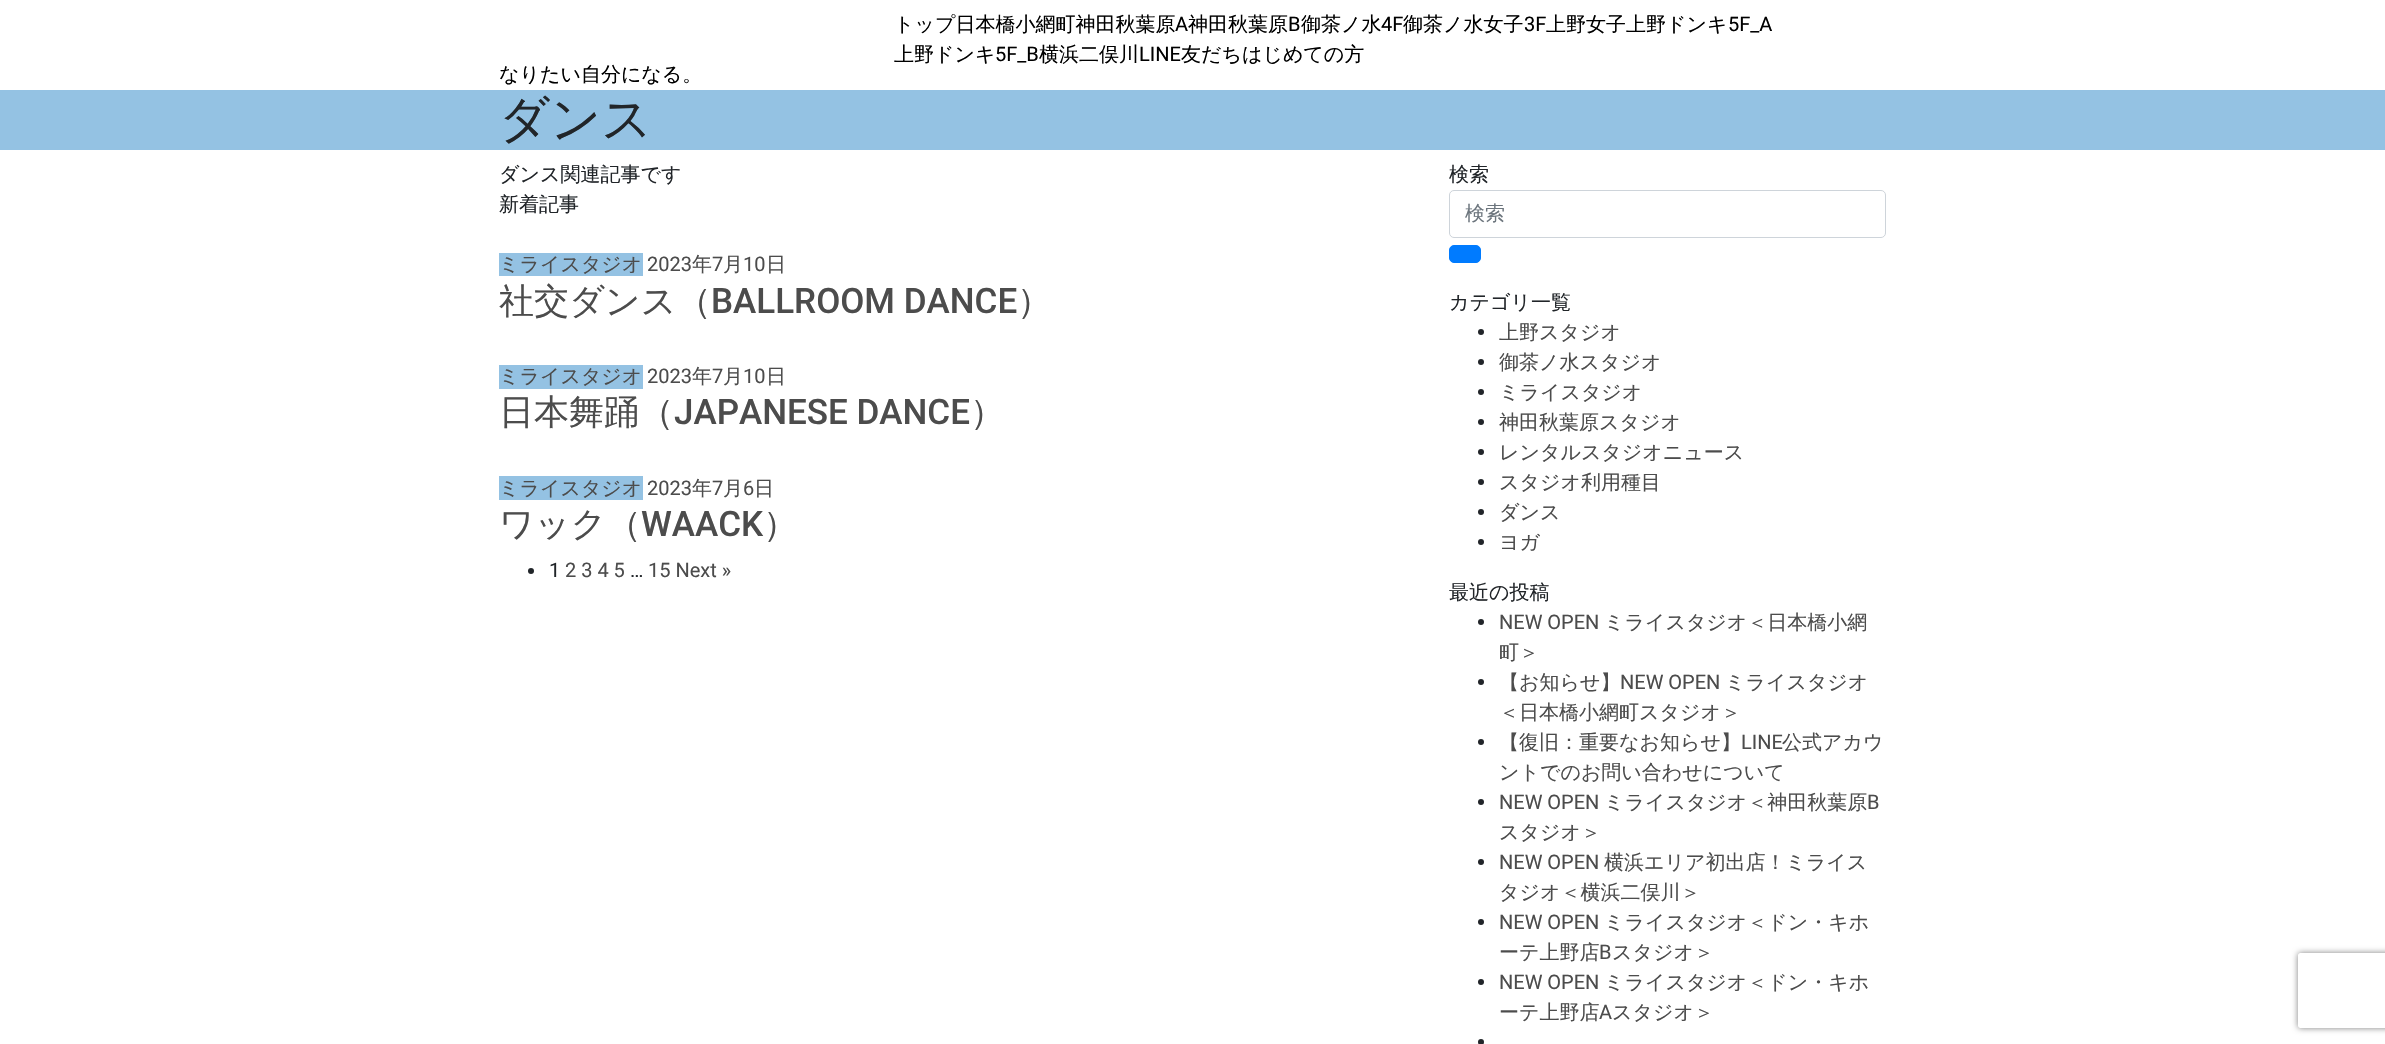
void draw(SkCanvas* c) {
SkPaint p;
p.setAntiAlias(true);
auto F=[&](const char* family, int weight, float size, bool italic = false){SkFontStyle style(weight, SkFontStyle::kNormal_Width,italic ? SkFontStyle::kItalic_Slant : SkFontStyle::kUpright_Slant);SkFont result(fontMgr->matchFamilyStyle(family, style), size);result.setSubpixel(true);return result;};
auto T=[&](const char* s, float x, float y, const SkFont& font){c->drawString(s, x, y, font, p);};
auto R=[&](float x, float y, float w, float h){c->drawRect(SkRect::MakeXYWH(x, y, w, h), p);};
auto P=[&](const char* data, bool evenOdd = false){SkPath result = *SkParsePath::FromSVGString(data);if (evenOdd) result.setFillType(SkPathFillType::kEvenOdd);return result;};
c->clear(0xffffffff);
auto f1 = F("WenQuanYi Zen Hei",500,20);
p.setColor(0xff000000);
T("トップ日本橋小網町神田秋葉原",894,31,f1);
auto f2 = F("Roboto",400,20);
T("A",1175,31,f2);
T("神田秋葉原",1188,31,f1);
T("B",1288,31,f2);
T("御茶ノ水",1301,31,f1);
T("4F",1381,31,f2);
T("御茶ノ水女子",1403,31,f1);
T("3F",1524,31,f2);
T("上野女子上野ドンキ",1546,31,f1);
T("5F_A",1728,31,f2);
T("上野ドンキ",894,61,f1);
T("5F_B",995,61,f2);
T("横浜二俣川",1039,61,f1);
T("LINE",1139,61,f2);
T("友だちはじめての方",1181,61,f1);
T("なりたい自分になる。",499,81,f1);
p.setColor(0xff94c2e3);
R(0,90,2385,60);
auto f3 = F("WenQuanYi Zen Hei",500,50);
p.setColor(0xff212529);
T("ダンス",499,136,f3);
T("ダンス関連記事です",499,181,f1);
T("新着記事",499,211,f1);
p.setColor(0xff94c2e3);
R(499,253,144,23);
p.setColor(0xff4c4c4c);
T("ミライスタジオ",499,271,f1);
T("2023",647,271,f2);
T("年",692,271,f1);
T("7",712,271,f2);
T("月",723,271,f1);
T("10",743,271,f2);
T("日",766,271,f1);
auto f4 = F("WenQuanYi Zen Hei",500,35);
T("社交ダンス（",499,313,f4);
auto f5 = F("Roboto",500,35);
T("BALLROOM DANCE",711,313,f5);
T("）",1017,313,f4);
p.setColor(0xff94c2e3);
R(499,365,144,24);
p.setColor(0xff4c4c4c);
T("ミライスタジオ",499,383,f1);
T("2023",647,383,f2);
T("年",692,383,f1);
T("7",712,383,f2);
T("月",723,383,f1);
T("10",743,383,f2);
T("日",766,383,f1);
T("日本舞踊（",499,424,f4);
T("JAPANESE DANCE",674,424,f5);
T("）",970,424,f4);
p.setColor(0xff94c2e3);
R(499,476,144,24);
p.setColor(0xff4c4c4c);
T("ミライスタジオ",499,495,f1);
T("2023",647,495,f2);
T("年",692,495,f1);
T("7",712,495,f2);
T("月",723,495,f1);
T("6",743,495,f2);
T("日",754,495,f1);
T("ワック（",499,536,f4);
T("WAACK",641,536,f5);
T("）",763,536,f4);
p.setColor(0xff212529);
c->drawCircle(531,571,3,p);
T("1",549,577,f2);
p.setColor(0xff4c4c4c);
T("2 3 4 5",565,577,f2);
T("15 Next »",648,577,f2);
p.setColor(0xff212529);
T("…",630,577,f2);
T("検索",1449,181,f1);
p.setStroke(true);
p.setStrokeWidth(1);
p.setColor(0xffced4da);
c->drawRoundRect(SkRect::MakeXYWH(1449.5,190.5,436,47),4.5,4.5,p);
p.setStroke(false);
p.setColor(0xff6c757d);
T("検索",1465,220,f1);
p.setColor(0xff007bff);
c->drawRoundRect(SkRect::MakeXYWH(1449.5,245.5,31,17),4.5,4.5,p);
p.setStroke(true);
c->drawRoundRect(SkRect::MakeXYWH(1449.5,245.5,31,17),4.5,4.5,p);
p.setStroke(false);
p.setColor(0xff212529);
T("カテゴリ一覧",1449,309,f1);
c->drawCircle(1481,332,3,p);
p.setColor(0xff4c4c4c);
T("上野スタジオ",1499,339,f1);
p.setColor(0xff212529);
c->drawCircle(1481,362,3,p);
p.setColor(0xff4c4c4c);
T("御茶ノ水スタジオ",1499,369,f1);
p.setColor(0xff212529);
c->drawCircle(1481,392,3,p);
p.setColor(0xff4c4c4c);
T("ミライスタジオ",1499,399,f1);
p.setColor(0xff212529);
c->drawCircle(1481,422,3,p);
p.setColor(0xff4c4c4c);
T("神田秋葉原スタジオ",1499,429,f1);
p.setColor(0xff212529);
c->drawCircle(1481,452,3,p);
p.setColor(0xff4c4c4c);
T("レンタルスタジオニュース",1499,459,f1);
p.setColor(0xff212529);
c->drawCircle(1481,482,3,p);
p.setColor(0xff4c4c4c);
T("スタジオ利用種目",1499,489,f1);
p.setColor(0xff212529);
c->drawCircle(1481,512,3,p);
p.setColor(0xff4c4c4c);
T("ダンス",1499,519,f1);
p.setColor(0xff212529);
c->drawCircle(1481,542,3,p);
p.setColor(0xff4c4c4c);
T("ヨガ",1499,549,f1);
p.setColor(0xff212529);
T("最近の投稿",1449,599,f1);
c->drawCircle(1481,622,3,p);
p.setColor(0xff4c4c4c);
T("NEW OPEN",1499,629,f2);
T("ミライスタジオ＜日本橋小網",1604,629,f1);
T("町＞",1499,659,f1);
p.setColor(0xff212529);
c->drawCircle(1481,682,3,p);
p.setColor(0xff4c4c4c);
T("【お知らせ】",1499,689,f1);
T("NEW OPEN",1620,689,f2);
T("ミライスタジオ",1725,689,f1);
T("＜日本橋小網町スタジオ＞",1499,719,f1);
p.setColor(0xff212529);
c->drawCircle(1481,742,3,p);
p.setColor(0xff4c4c4c);
T("【復旧：重要なお知らせ】",1499,749,f1);
T("LINE",1741,749,f2);
T("公式アカウ",1782,749,f1);
T("ントでのお問い合わせについて",1499,779,f1);
p.setColor(0xff212529);
c->drawCircle(1481,802,3,p);
p.setColor(0xff4c4c4c);
T("NEW OPEN",1499,809,f2);
T("ミライスタジオ＜神田秋葉原",1604,809,f1);
T("B",1867,809,f2);
T("スタジオ＞",1499,839,f1);
p.setColor(0xff212529);
c->drawCircle(1481,862,3,p);
p.setColor(0xff4c4c4c);
T("NEW OPEN",1499,869,f2);
T("横浜エリア初出店！ミライス",1604,869,f1);
T("タジオ＜横浜二俣川＞",1499,899,f1);
p.setColor(0xff212529);
c->drawCircle(1481,922,3,p);
p.setColor(0xff4c4c4c);
T("NEW OPEN",1499,929,f2);
T("ミライスタジオ＜ドン・キホ",1604,929,f1);
T("ーテ上野店",1499,959,f1);
T("B",1599,959,f2);
T("スタジオ＞",1612,959,f1);
p.setColor(0xff212529);
c->drawCircle(1481,982,3,p);
p.setColor(0xff4c4c4c);
T("NEW OPEN",1499,989,f2);
T("ミライスタジオ＜ドン・キホ",1604,989,f1);
T("ーテ上野店",1499,1019,f1);
T("A",1599,1019,f2);
T("スタジオ＞",1612,1019,f1);
p.setColor(0xff212529);
c->drawCircle(1481,1042,3,p);
c->save();
c->clipPath(P("M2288 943h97v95h-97zm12.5 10h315c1.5 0 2.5 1 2.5 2.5v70c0 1.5-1 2.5-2.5 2.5h-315c-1.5 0-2.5-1-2.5-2.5v-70c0-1.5 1-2.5 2.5-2.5z",true),true);
p.setColor(0xff808080);
p.setMaskFilter(SkMaskFilter::MakeBlur(kNormal_SkBlurStyle, 3));
c->drawRoundRect(SkRect::MakeXYWH(2298,953,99,75),2.5,2.5,p);
p.setMaskFilter(nullptr);
c->restore();
}
